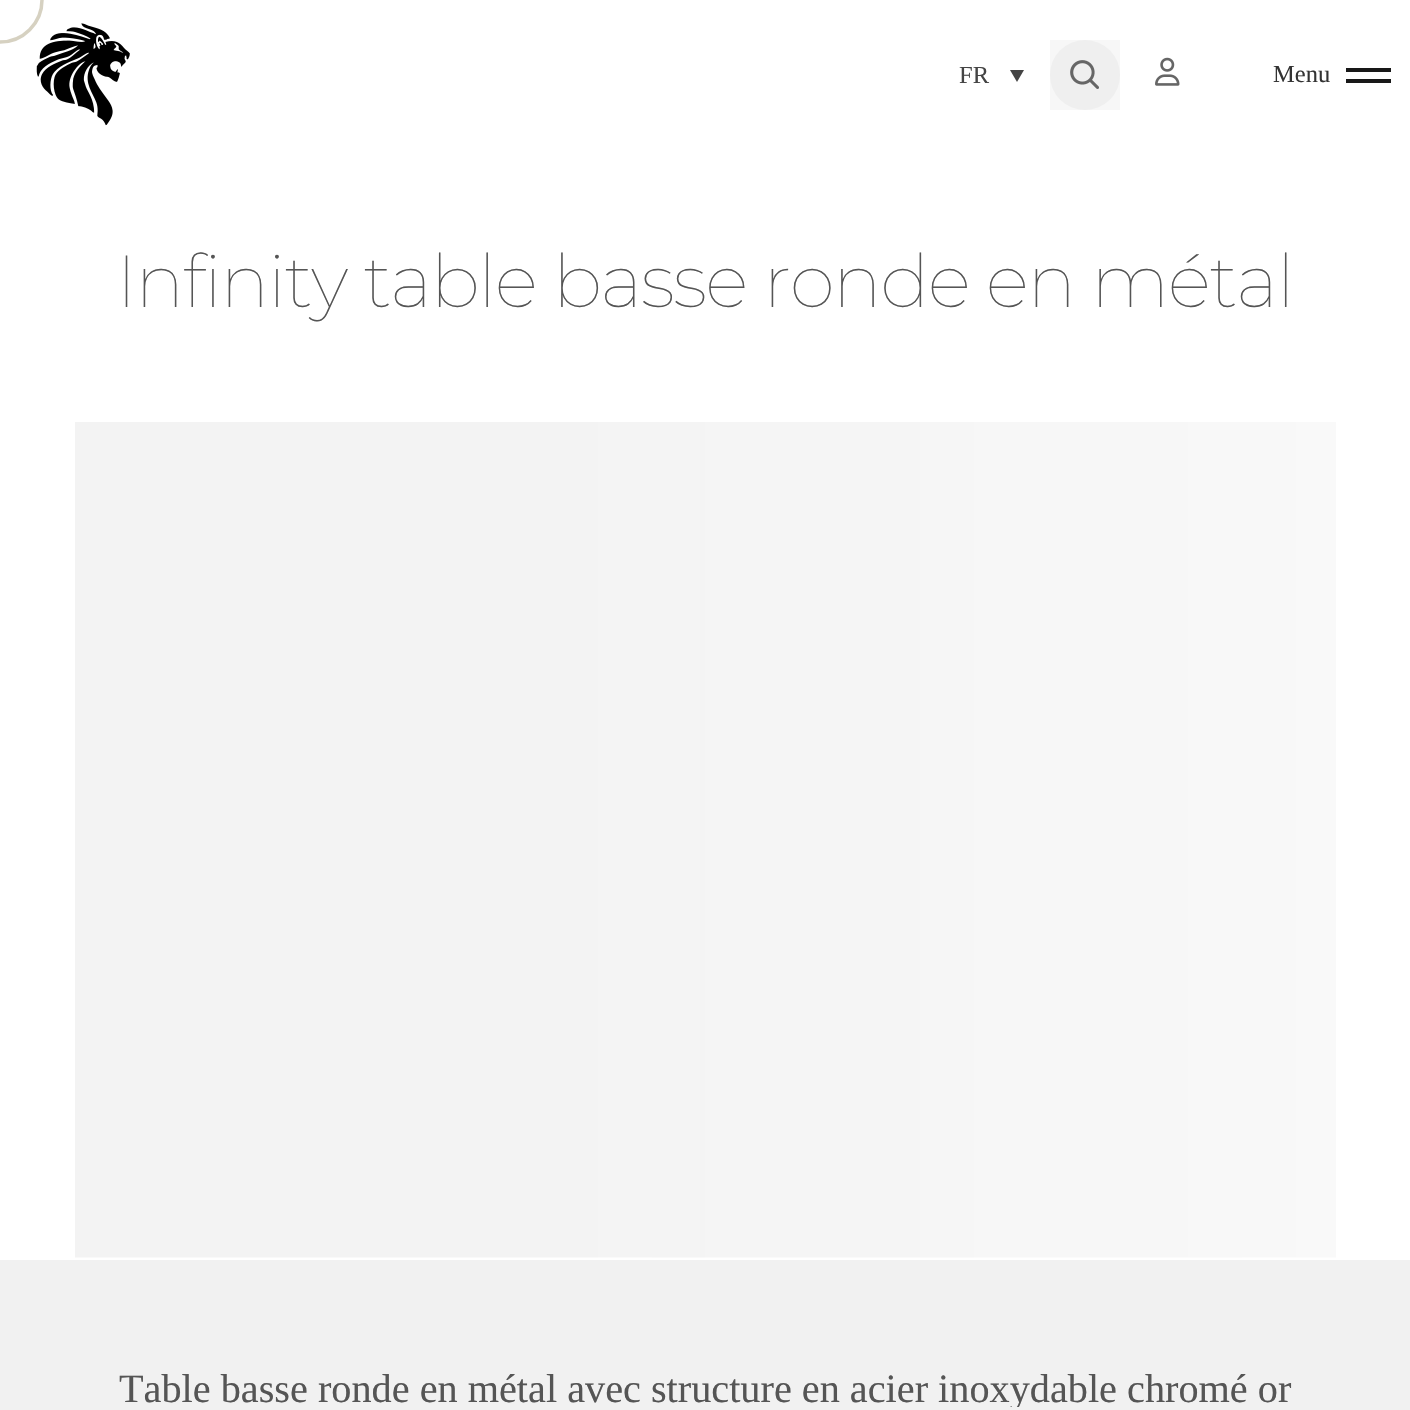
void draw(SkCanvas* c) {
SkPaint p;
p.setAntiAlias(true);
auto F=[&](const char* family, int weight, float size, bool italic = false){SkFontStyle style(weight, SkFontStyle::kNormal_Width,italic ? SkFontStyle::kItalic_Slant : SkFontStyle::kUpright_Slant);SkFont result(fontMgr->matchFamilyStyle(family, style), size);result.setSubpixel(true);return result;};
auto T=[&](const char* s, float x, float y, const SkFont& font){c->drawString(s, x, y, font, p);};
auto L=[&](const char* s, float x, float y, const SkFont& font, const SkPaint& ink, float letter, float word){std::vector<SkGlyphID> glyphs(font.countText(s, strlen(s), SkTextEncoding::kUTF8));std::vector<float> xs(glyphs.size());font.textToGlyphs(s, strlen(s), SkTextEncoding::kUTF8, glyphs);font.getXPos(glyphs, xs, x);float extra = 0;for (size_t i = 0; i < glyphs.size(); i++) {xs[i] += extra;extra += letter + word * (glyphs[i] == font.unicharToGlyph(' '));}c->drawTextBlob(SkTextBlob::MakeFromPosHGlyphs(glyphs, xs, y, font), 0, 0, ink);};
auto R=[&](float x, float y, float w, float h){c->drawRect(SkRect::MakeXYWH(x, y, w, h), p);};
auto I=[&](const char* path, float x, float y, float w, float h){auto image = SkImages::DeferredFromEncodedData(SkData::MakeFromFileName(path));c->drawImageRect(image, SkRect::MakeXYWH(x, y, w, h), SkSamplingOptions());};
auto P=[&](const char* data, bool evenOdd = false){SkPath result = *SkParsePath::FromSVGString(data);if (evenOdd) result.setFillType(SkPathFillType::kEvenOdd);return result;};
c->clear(0xffffffff);
I("1.png",36,23,94,103);
p.setStroke(true);
p.setStrokeWidth(3.5);
p.setColor(0xffd6d1c1);
c->drawCircle(0,0,42,p);
auto f1 = F("Liberation Serif",400,24.5);
p.setStroke(false);
p.setColor(0xff444444);
T("FR",959,83,f1);
c->drawPath(P("M1010 70h14l-7 12z"),p);
p.setColor(0xfff7f7f7);
c->drawCircle(1085,75,35,p);
p.setColor(0x08000000);
R(1050,40,70,70);
I("2.png",1070,60,29,29);
I("3.png",1155,57,25,29);
p.setColor(0xff333333);
T("Menu",1273,82,f1);
p.setColor(0xff181818);
R(1346,68,45,4);
R(1346,79,45,4);
auto f2 = F("Montserrat",100,73.5);
p.setColor(0xff555555);
L("Infinity table basse ronde en métal",116,307,f2,p,-1.75,0);
I("4.png",75,422,1261,836);
p.setColor(0xfff1f1f1);
R(0,1260,1410,150);
c->save();
c->clipRect(SkRect::MakeXYWH(114,1351,1183,56));
auto f3 = F("Liberation Serif",400,40.25);
p.setColor(0xff555555);
T("Table basse ronde en métal avec structure en acier inoxydable chromé or",119,1402,f3);
c->restore();
}
